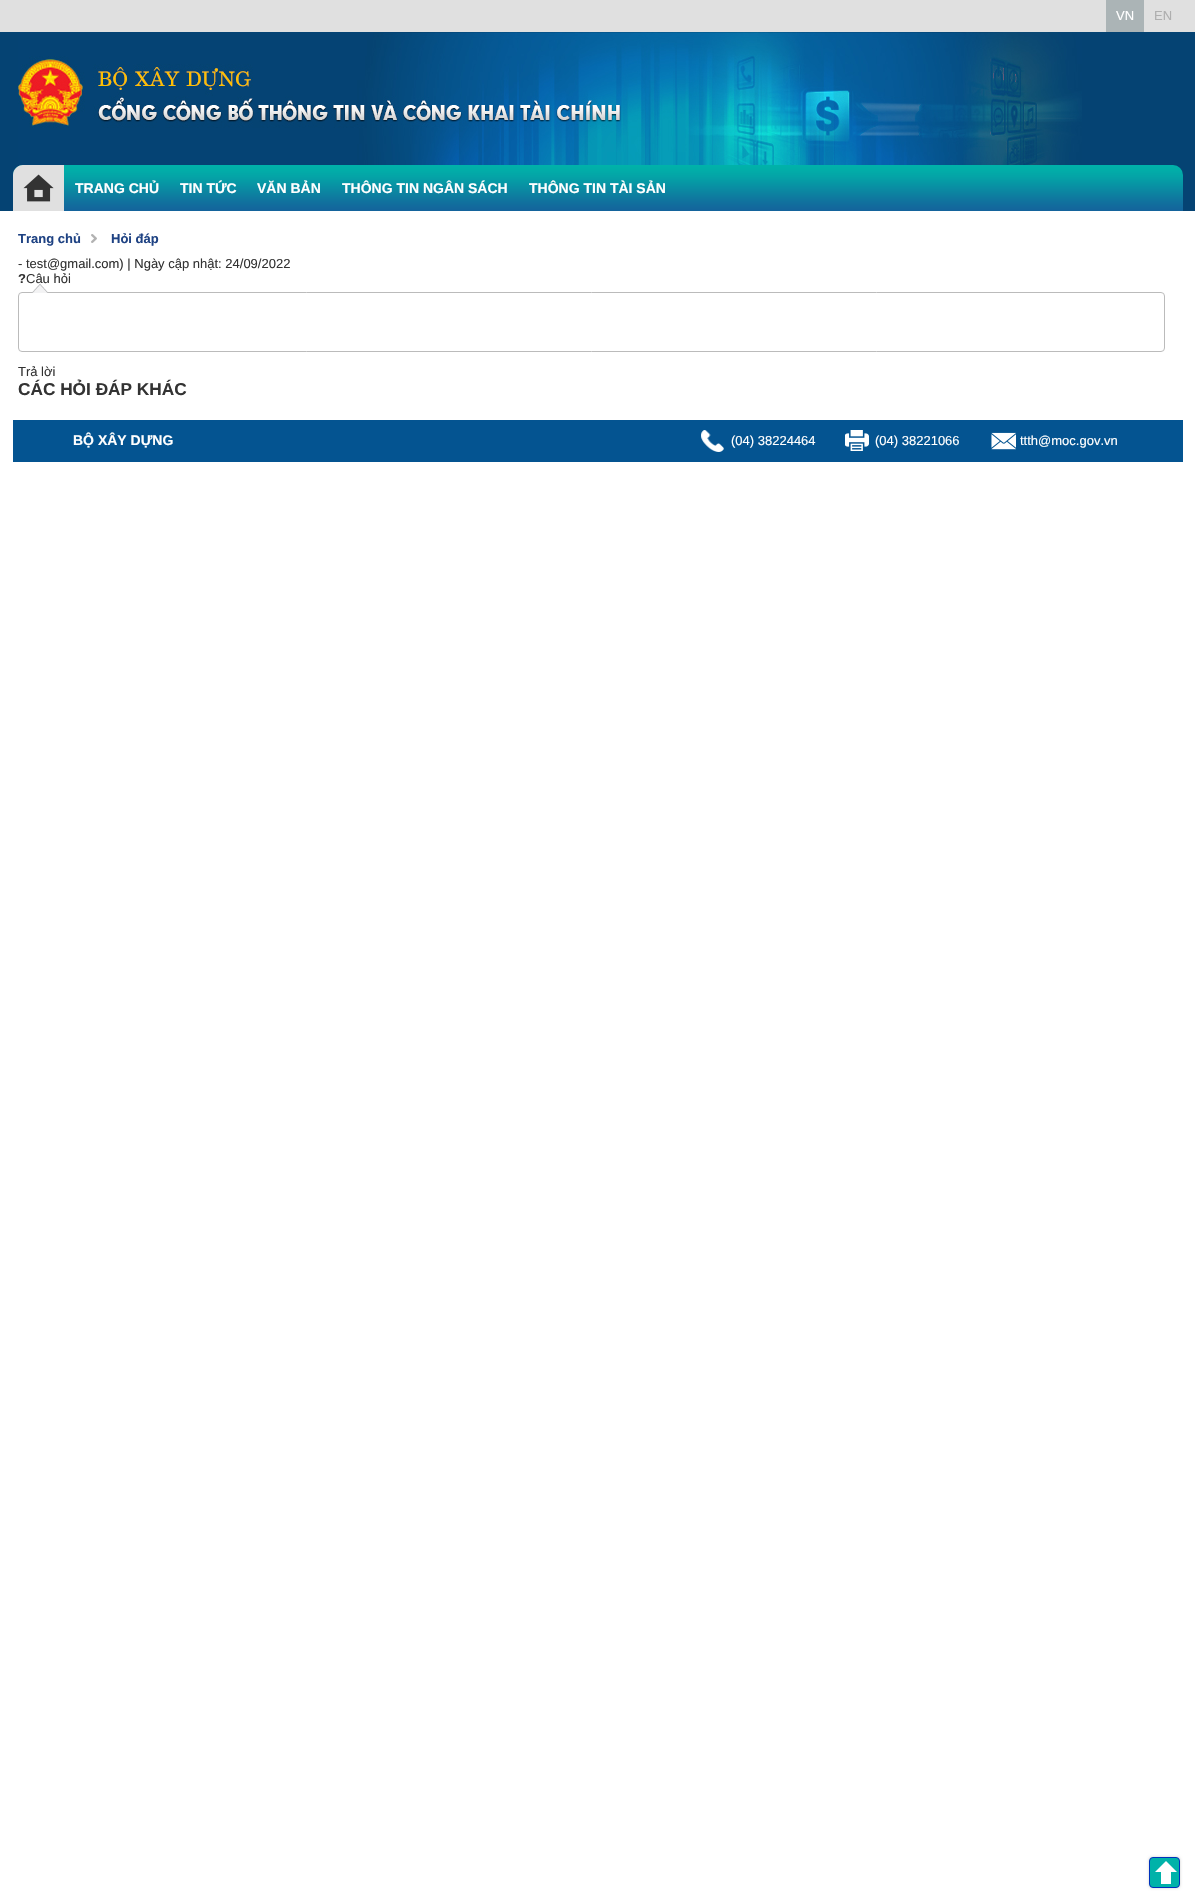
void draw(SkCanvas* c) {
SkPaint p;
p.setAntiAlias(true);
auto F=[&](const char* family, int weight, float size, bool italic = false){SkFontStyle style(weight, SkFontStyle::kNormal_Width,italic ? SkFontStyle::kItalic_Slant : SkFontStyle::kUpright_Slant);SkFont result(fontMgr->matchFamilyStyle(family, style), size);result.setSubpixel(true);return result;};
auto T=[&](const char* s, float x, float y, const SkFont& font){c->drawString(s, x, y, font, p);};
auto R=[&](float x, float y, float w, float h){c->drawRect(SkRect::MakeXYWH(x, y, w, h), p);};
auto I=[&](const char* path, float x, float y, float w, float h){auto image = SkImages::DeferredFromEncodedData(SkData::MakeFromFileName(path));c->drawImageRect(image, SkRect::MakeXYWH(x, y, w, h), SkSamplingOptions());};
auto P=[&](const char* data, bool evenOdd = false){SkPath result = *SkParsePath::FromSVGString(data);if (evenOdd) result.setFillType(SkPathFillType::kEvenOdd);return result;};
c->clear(0xffffffff);
I("1.png",0,0,1195,211);
p.setColor(0xffabb4b6);
R(1106,0,38,32);
auto f1 = F("Liberation Sans",400,13);
p.setColor(0xffffffff);
T("VN",1116,20,f1);
p.setColor(0xffafafaf);
T("EN",1154,20,f1);
I("2.png",18,32,1064,133);
I("3.png",13,165,1170,46);
p.setColor(0xffe0e0e0);
c->drawPath(P("M23 165h41v46h-51v-36c0-5.5 4.5-10 10-10z"),p);
I("4.png",23,174,31,28);
auto f2 = F("Liberation Sans",700,14);
p.setColor(0xffffffff);
T("TRANG CHỦ",75,193,f2);
T("TIN TỨC",180,193,f2);
T("VĂN BẢN",257,193,f2);
T("THÔNG TIN NGÂN SÁCH",342,193,f2);
T("THÔNG TIN TÀI SẢN",529,193,f2);
auto f3 = F("Liberation Sans",700,13);
p.setColor(0xff1e4283);
T("Trang chủ",18,243,f3);
I("5.png",91,234,6,9);
T("Hỏi đáp",111,243,f3);
p.setColor(0xff333333);
T("- test@gmail.com) | Ngày cập nhật: 24/09/2022",18,268,f1);
T("?",18,283,f3);
T("Câu hỏi",26,283,f1);
p.setStroke(true);
p.setStrokeWidth(1);
p.setColor(0xffbbbbbb);
c->drawRoundRect(SkRect::MakeXYWH(18.5,292.5,1146,59),3.5,3.5,p);
I("6.png",32,283,16,10);
p.setStroke(false);
p.setColor(0xff333333);
T("Trả lời",18,376,f1);
auto f4 = F("Liberation Sans",700,17.25);
T("CÁC HỎI ĐÁP KHÁC",18,395,f4);
p.setColor(0xff045491);
R(13,420,1170,42);
p.setColor(0xffffffff);
T("BỘ XÂY DỰNG",73,445,f2);
I("7.png",701,430,23,22);
T("(04) 38224464",731,445,f1);
I("8.png",845,430,24,21);
T("(04) 38221066",875,445,f1);
I("9.png",991,432,25,18);
T("ttth@moc.gov.vn",1020,445,f1);
p.setColor(0x33000000);
p.setMaskFilter(SkMaskFilter::MakeBlur(kNormal_SkBlurStyle, 1.5));
c->drawRoundRect(SkRect::MakeXYWH(1149,1857,31,31),4,4,p);
p.setMaskFilter(nullptr);
p.setColor(0xff00b2a9);
c->drawRoundRect(SkRect::MakeXYWH(1149.5,1857.5,30,30),3.5,3.5,p);
p.setStroke(true);
p.setColor(0xff0031bc);
c->drawRoundRect(SkRect::MakeXYWH(1149.5,1857.5,30,30),3.5,3.5,p);
p.setStroke(false);
p.setColor(0xffffffff);
c->drawPath(P("M1177 1872h-22l11-11z"),p);
R(1161,1872,10,12);
}
